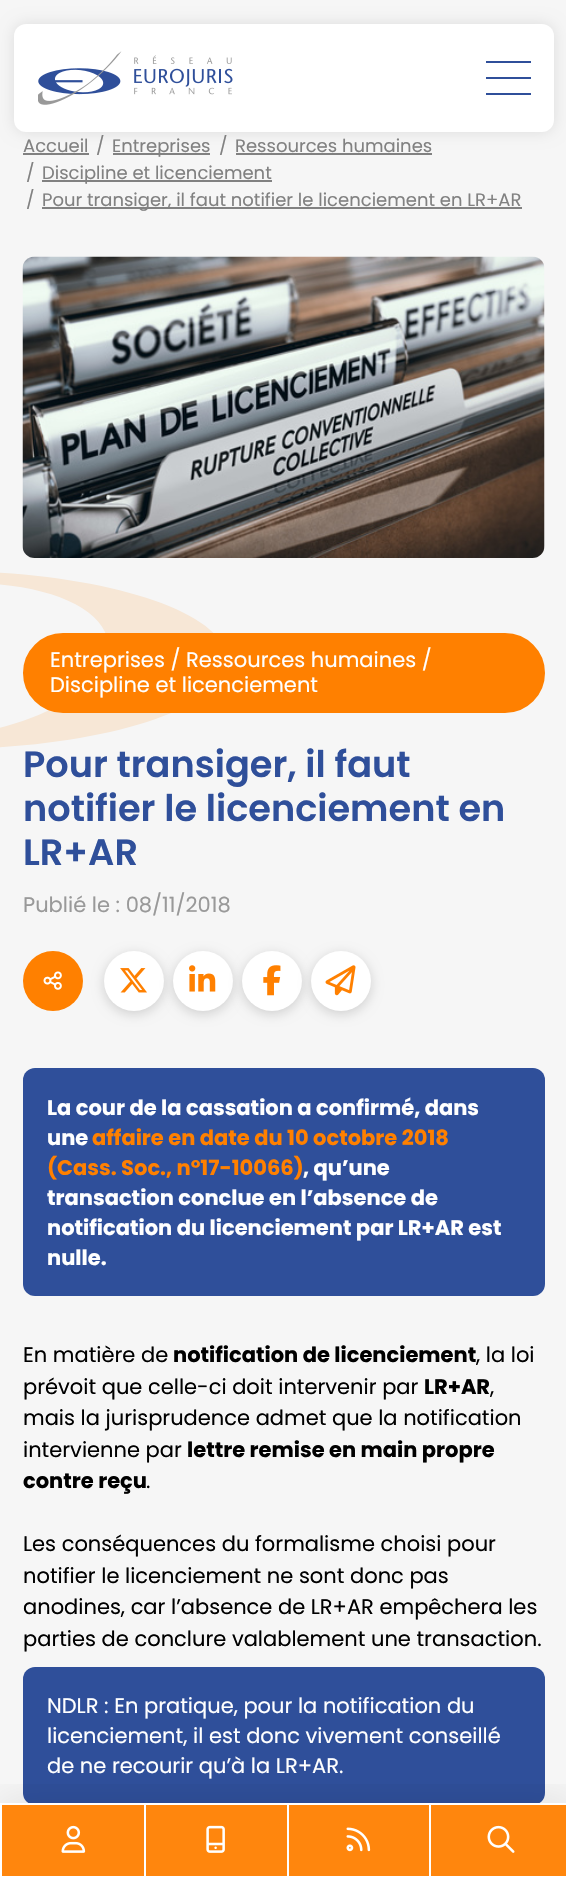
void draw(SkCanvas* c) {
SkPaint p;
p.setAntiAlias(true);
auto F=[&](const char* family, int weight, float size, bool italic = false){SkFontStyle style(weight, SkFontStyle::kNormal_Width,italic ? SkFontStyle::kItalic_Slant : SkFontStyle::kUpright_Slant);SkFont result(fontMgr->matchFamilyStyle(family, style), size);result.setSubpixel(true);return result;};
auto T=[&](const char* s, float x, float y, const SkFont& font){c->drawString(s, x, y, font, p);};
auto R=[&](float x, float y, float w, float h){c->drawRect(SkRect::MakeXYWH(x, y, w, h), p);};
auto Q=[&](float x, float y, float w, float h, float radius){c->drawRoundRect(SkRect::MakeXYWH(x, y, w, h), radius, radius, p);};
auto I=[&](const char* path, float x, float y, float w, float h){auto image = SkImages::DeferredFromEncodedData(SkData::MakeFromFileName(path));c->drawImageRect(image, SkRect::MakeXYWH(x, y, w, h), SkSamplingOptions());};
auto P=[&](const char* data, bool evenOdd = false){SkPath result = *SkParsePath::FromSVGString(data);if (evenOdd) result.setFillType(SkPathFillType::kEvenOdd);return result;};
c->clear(0xfff6f6f6);
p.setColor(0xff818181);
R(23,153,66,2);
R(113,153,97,2);
R(236,153,196,2);
p.setColor(0x1a000000);
p.setMaskFilter(SkMaskFilter::MakeBlur(kNormal_SkBlurStyle, 7.5));
c->drawRoundRect(SkRect::MakeXYWH(14,24,540,108),12,12,p);
p.setMaskFilter(nullptr);
p.setColor(0xffffffff);
Q(14,24,540,108,12);
I("1.png",38,51,195,54);
p.setColor(0xff2f4f9a);
R(486,61,45,2);
R(486,77,45,2);
R(486,93,45,2);
auto f1 = F("Poppins",400,18);
p.setColor(0xff818181);
T("Accueil",23,152,f1);
T("/",96,152,f1);
T("Entreprises",112,152,f1);
T("/",219,152,f1);
T("Ressources humaines",235,152,f1);
T("/",26,179,f1);
R(42,180,230,2);
T("Discipline et licenciement",42,179,f1);
T("/",26,206,f1);
R(42,207,480,2);
T("Pour transiger, il faut notifier le licenciement en LR+AR",42,206,f1);
I("2.png",22,256,523,302);
p.setColor(0xfff7e7d6);
c->drawPath(P("M-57 749c-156 0-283-40-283-89c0-49 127-89 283-89c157 0 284 40 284 89c0 49-127 89-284 89m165-106c-4-41-82-67-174-58c-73 8-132 35-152 67h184v15h-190c-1 4-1 7-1 11c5 42 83 68 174 59c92-10 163-52 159-94"),p);
p.setColor(0xffff8000);
c->drawRoundRect(SkRect::MakeXYWH(24.5,634.5,519,77),38.5,38.5,p);
p.setStroke(true);
p.setStrokeWidth(3);
c->drawRoundRect(SkRect::MakeXYWH(24.5,634.5,519,77),38.5,38.5,p);
auto f2 = F("Poppins",400,21);
p.setStroke(false);
p.setColor(0xffffffff);
T("Entreprises / Ressources humaines /",50,667,f2);
T("Discipline et licenciement",50,692,f2);
auto f3 = F("Poppins",600,36.7);
p.setColor(0xff2f4f9a);
T("Pour transiger, il faut",23,777,f3);
T("notifier le licenciement en",23,821,f3);
T("LR+AR",23,865,f3);
p.setColor(0xff999999);
T("Publié le : 08/11/2018",23,912,f2);
p.setColor(0xffff8000);
c->drawCircle(53,981,30,p);
I("3.png",43,971,19,19);
p.setColor(0x29000000);
p.setMaskFilter(SkMaskFilter::MakeBlur(kNormal_SkBlurStyle, 6));
c->drawRoundRect(SkRect::MakeXYWH(104,954,60,60),30,30,p);
p.setMaskFilter(nullptr);
p.setColor(0xffffffff);
c->drawCircle(134,981,30,p);
I("4.png",120,968,27,25);
p.setColor(0x29000000);
p.setMaskFilter(SkMaskFilter::MakeBlur(kNormal_SkBlurStyle, 6));
c->drawRoundRect(SkRect::MakeXYWH(173,954,60,60),30,30,p);
p.setMaskFilter(nullptr);
p.setColor(0xffffffff);
c->drawCircle(203,981,30,p);
I("5.png",189,965,27,27);
p.setColor(0x29000000);
p.setMaskFilter(SkMaskFilter::MakeBlur(kNormal_SkBlurStyle, 6));
c->drawRoundRect(SkRect::MakeXYWH(242,954,60,60),30,30,p);
p.setMaskFilter(nullptr);
p.setColor(0xffffffff);
c->drawCircle(272,981,30,p);
I("6.png",263,965,18,31);
p.setColor(0x29000000);
p.setMaskFilter(SkMaskFilter::MakeBlur(kNormal_SkBlurStyle, 6));
c->drawRoundRect(SkRect::MakeXYWH(311,954,60,60),30,30,p);
p.setMaskFilter(nullptr);
p.setColor(0xffffffff);
c->drawCircle(341,981,30,p);
I("7.png",325,965,31,31);
p.setColor(0xff2f4f9a);
Q(23,1068,522,228,12);
auto f4 = F("Poppins",700,21);
p.setColor(0xffffffff);
T("La cour de la cassation a confirmé, dans",47,1115,f4);
T("une",47,1145,f4);
p.setColor(0xffff8000);
T("affaire en date du 10 octobre 2018",92,1145,f4);
T("(Cass. Soc., n°17-10066)",47,1175,f4);
p.setColor(0xffffffff);
T(", qu’une",303,1175,f4);
T("transaction conclue en l’absence de",47,1205,f4);
T("notification du licenciement par LR+AR est",47,1235,f4);
T("nulle.",47,1265,f4);
p.setColor(0xff000000);
T("En matière de",23,1362,f2);
T("notification de licenciement",173,1362,f4);
T(", la loi",476,1362,f2);
T("prévoit que celle-ci doit intervenir par",23,1394,f2);
T("LR+AR",424,1394,f4);
T(",",490,1394,f2);
T("mais la jurisprudence admet que la notification",23,1425,f2);
T("intervienne par",23,1457,f2);
T("lettre remise en main propre",187,1457,f4);
T("contre reçu",23,1488,f4);
T(".",146,1488,f2);
T("Les conséquences du formalisme choisi pour",23,1551,f2);
T("notifier le licenciement ne sont donc pas",23,1583,f2);
T("anodines, car l’absence de LR+AR empêchera les",23,1614,f2);
T("parties de conclure valablement une transaction.",23,1646,f2);
p.setColor(0xff2f4f9a);
Q(23,1667,522,138,12);
p.setColor(0xffffffff);
T("NDLR : En pratique, pour la notification du",47,1713,f2);
T("licenciement, il est donc vivement conseillé",47,1743,f2);
T("de ne recourir qu’à la LR+AR.",47,1773,f2);
c->save();
c->clipRect(SkRect::MakeXYWH(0,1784,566,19));
p.setColor(0x1a000000);
p.setMaskFilter(SkMaskFilter::MakeBlur(kNormal_SkBlurStyle, 22.5));
c->drawRect(SkRect::MakeXYWH(0,1803,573,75),p);
p.setMaskFilter(nullptr);
c->restore();
p.setColor(0xf2ff8000);
c->drawRect(SkRect::MakeXYWH(1,1804,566,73),p);
p.setStroke(true);
p.setStrokeWidth(2);
p.setColor(0xffffffff);
c->drawRect(SkRect::MakeXYWH(1,1804,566,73),p);
I("8.png",61,1825,25,28);
p.setStroke(false);
R(144,1805,2,72);
I("9.png",206,1825,19,28);
R(287,1805,2,72);
I("10.png",346,1827,25,25);
R(429,1805,2,72);
I("11.png",487,1825,28,28);
}
